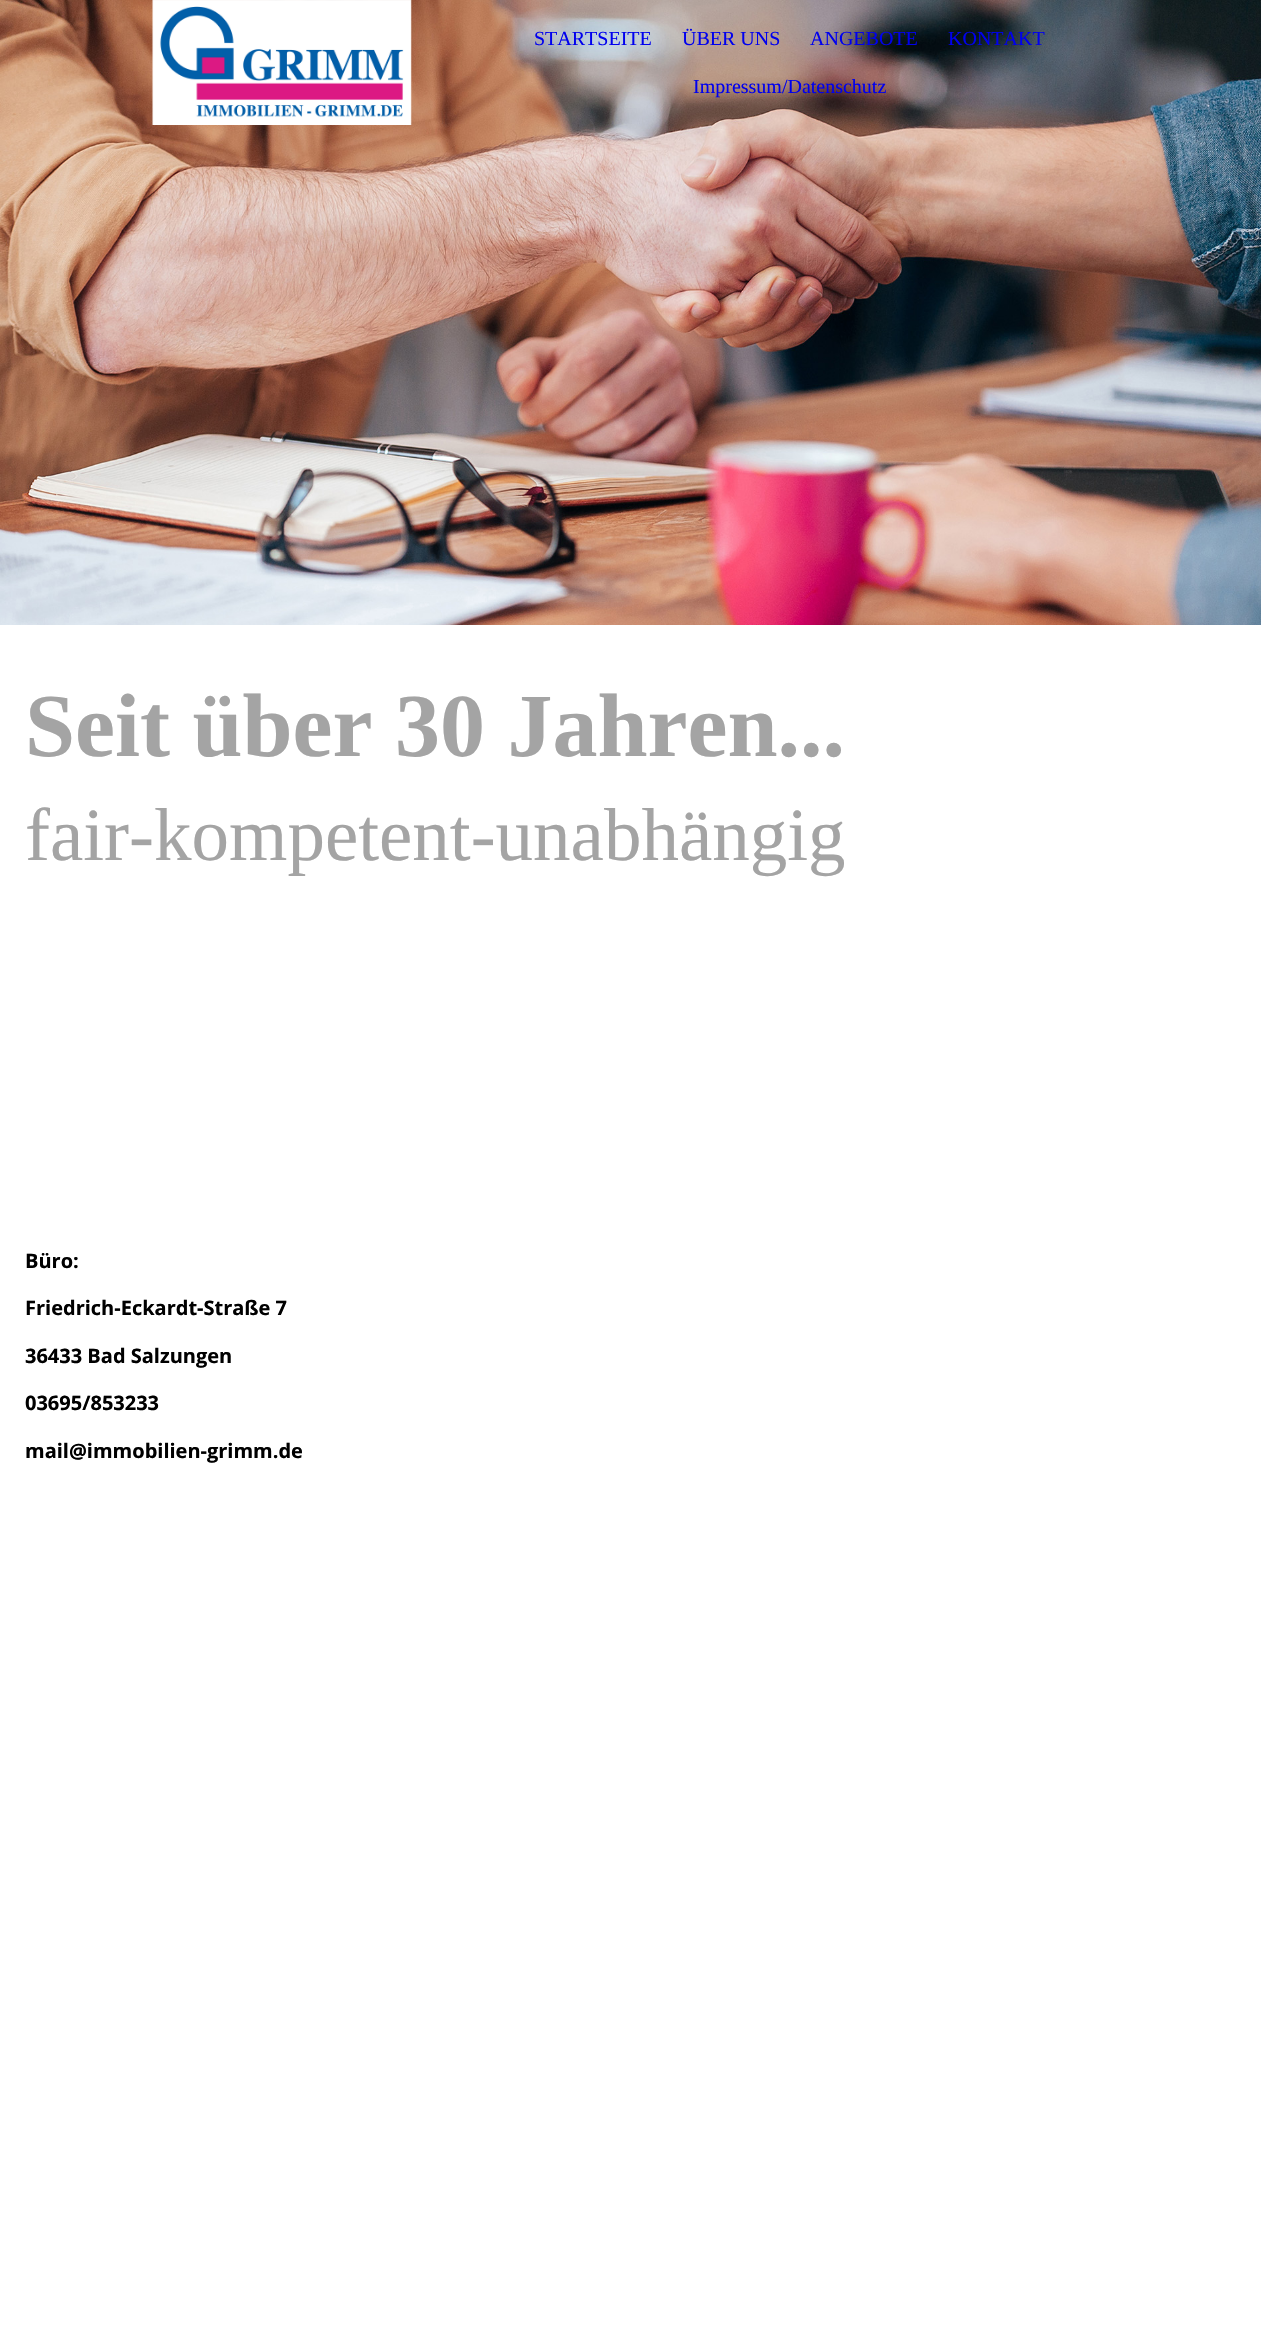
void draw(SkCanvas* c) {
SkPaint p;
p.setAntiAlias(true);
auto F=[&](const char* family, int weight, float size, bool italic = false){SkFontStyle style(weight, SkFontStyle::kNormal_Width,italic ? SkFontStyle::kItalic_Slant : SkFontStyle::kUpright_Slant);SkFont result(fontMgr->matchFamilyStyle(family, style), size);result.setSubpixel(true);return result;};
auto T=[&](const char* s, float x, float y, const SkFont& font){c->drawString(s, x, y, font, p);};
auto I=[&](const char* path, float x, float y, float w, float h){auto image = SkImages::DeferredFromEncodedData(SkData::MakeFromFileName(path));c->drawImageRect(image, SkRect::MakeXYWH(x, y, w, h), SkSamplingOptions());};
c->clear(0xffffffff);
I("1.png",0,0,1261,625);
I("2.png",152,0,260,125);
auto f1 = F("Liberation Serif",400,20);
p.setColor(0xff0000ee);
T("STARTSEITE",534,45,f1);
T("ÜBER UNS",682,45,f1);
T("ANGEBOTE",810,45,f1);
T("KONTAKT",948,45,f1);
T("Impressum/Datenschutz",693,93,f1);
auto f2 = F("Liberation Serif",700,90);
p.setColor(0xffa4a4a4);
T("Seit über 30 Jahren...",25,756,f2);
auto f3 = F("Liberation Serif",400,75);
T("fair-kompetent-unabhängig",25,860,f3);
auto f4 = F("Open Sans",700,20);
p.setColor(0xff000000);
T("Büro:",25,1268,f4);
T("Friedrich-Eckardt-Straße 7",25,1315,f4);
T("36433 Bad Salzungen",25,1363,f4);
T("03695/853233",25,1410,f4);
T("mail@immobilien-grimm.de",25,1458,f4);
}
